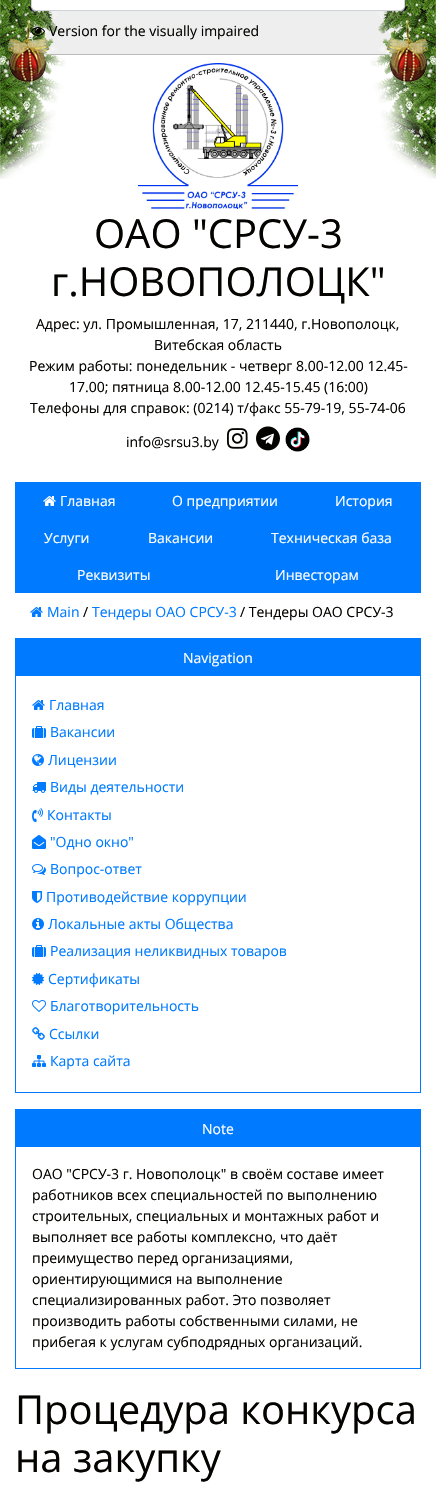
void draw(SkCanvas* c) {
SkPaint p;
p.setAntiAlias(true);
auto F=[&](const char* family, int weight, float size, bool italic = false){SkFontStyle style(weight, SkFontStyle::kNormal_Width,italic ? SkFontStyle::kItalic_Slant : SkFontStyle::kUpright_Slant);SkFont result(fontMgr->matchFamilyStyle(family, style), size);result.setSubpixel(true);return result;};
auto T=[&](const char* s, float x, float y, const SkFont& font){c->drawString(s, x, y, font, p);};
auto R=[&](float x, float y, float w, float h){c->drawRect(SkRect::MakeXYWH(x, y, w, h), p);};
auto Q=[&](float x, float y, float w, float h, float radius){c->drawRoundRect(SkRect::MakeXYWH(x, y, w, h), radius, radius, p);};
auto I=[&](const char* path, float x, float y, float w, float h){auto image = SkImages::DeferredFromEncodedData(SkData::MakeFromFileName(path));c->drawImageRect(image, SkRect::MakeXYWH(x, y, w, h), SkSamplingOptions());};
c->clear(0xffffffff);
p.setColor(0xffeeeeee);
R(0,0,436,54);
p.setColor(0xffbbbbbb);
R(0,54,436,1);
I("1.png",0,0,66,179);
I("3.png",370,0,66,179);
p.setColor(0xffffffff);
Q(32,-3,372,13,3);
p.setStroke(true);
p.setStrokeWidth(1);
p.setColor(0xffced4da);
c->drawRoundRect(SkRect::MakeXYWH(31.5,-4.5,373,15),3.5,3.5,p);
I("2.png",31,27,14,9);
auto f1 = F("Open Sans",400,14);
p.setStroke(false);
p.setColor(0xff040300);
T("Version for the visually impaired",49,36,f1);
I("4.png",138,63,160,146);
auto f2 = F("Open Sans",400,40);
T("ОАО \"СРСУ-3",94,248,f2);
T("г.НОВОПОЛОЦК\"",51,296,f2);
T("Адрес: ул. Промышленная, 17, 211440, г.Новополоцк,",36,329,f1);
T("Витебская область",154,350,f1);
T("Режим работы: понедельник - четверг 8.00-12.00 12.45-",29,371,f1);
T("17.00; пятница 8.00-12.00 12.45-15.45 (16:00)",69,392,f1);
T("Телефоны для справок: (0214) т/факс 55-79-19, 55-74-06",30,413,f1);
T("info@srsu3.by",126,447,f1);
I("5.png",227,428,21,21);
I("6.png",256,426,24,25);
I("7.png",285,427,25,25);
p.setColor(0xff007bff);
R(15,482,406,111);
I("8.png",43,496,13,10);
p.setColor(0xffffffff);
T("Главная",60,506,f1);
T("О предприятии",172,506,f1);
T("История",335,506,f1);
T("Услуги",44,543,f1);
T("Вакансии",148,543,f1);
T("Техническая база",271,543,f1);
T("Реквизиты",77,580,f1);
T("Инвесторам",275,580,f1);
I("9.png",30,607,13,10);
p.setColor(0xff007bff);
T("Main",47,617,f1);
p.setColor(0xff040300);
T("/",83,617,f1);
p.setColor(0xff007bff);
T("Тендеры ОАО СРСУ-3",92,617,f1);
p.setColor(0xff040300);
T("/ Тендеры ОАО СРСУ-3",240,617,f1);
p.setStroke(true);
p.setColor(0xff007bff);
c->drawRect(SkRect::MakeXYWH(15.5,638.5,405,454),p);
p.setStroke(false);
R(16,639,404,37);
p.setColor(0xffffffff);
T("Navigation",183,663,f1);
I("9.png",32,700,13,10);
p.setColor(0xff007bff);
T("Главная",49,710,f1);
I("10.png",32,726,14,12);
T("Вакансии",50,737,f1);
I("11.png",32,754,12,12);
T("Лицензии",48,765,f1);
I("12.png",32,782,14,11);
T("Виды деятельности",50,792,f1);
I("13.png",32,808,11,14);
T("Контакты",47,820,f1);
I("14.png",32,835,14,14);
T("\"Одно окно\"",50,847,f1);
I("15.png",32,864,14,11);
T("Вопрос-ответ",50,874,f1);
I("16.png",32,891,10,12);
T("Противодействие коррупции",46,902,f1);
I("17.png",32,918,12,12);
T("Локальные акты Общества",48,929,f1);
I("10.png",32,945,14,12);
T("Реализация неликвидных товаров",50,956,f1);
I("18.png",32,973,12,12);
T("Сертификаты",48,984,f1);
I("19.png",32,1000,14,12);
T("Благотворительность",50,1011,f1);
I("20.png",32,1027,13,13);
T("Ссылки",49,1039,f1);
I("21.png",32,1055,14,12);
T("Карта сайта",50,1066,f1);
p.setStroke(true);
c->drawRect(SkRect::MakeXYWH(15.5,1109.5,405,259),p);
p.setStroke(false);
R(16,1110,404,37);
p.setColor(0xffffffff);
T("Note",202,1134,f1);
p.setColor(0xff040300);
T("ОАО \"СРСУ-3 г. Новополоцк\" в своём составе имеет",32,1179,f1);
T("работников всех специальностей по выполнению",32,1200,f1);
T("строительных, специальных и монтажных работ и",32,1221,f1);
T("выполняет все работы комплексно, что даёт",32,1242,f1);
T("преимущество перед организациями,",32,1263,f1);
T("ориентирующимися на выполнение",32,1284,f1);
T("специализированных работ. Это позволяет",32,1305,f1);
T("производить работы собственными силами, не",32,1326,f1);
T("прибегая к услугам субподрядных организаций.",32,1347,f1);
T("Процедура конкурса",15,1424,f2);
T("на закупку",15,1472,f2);
}
